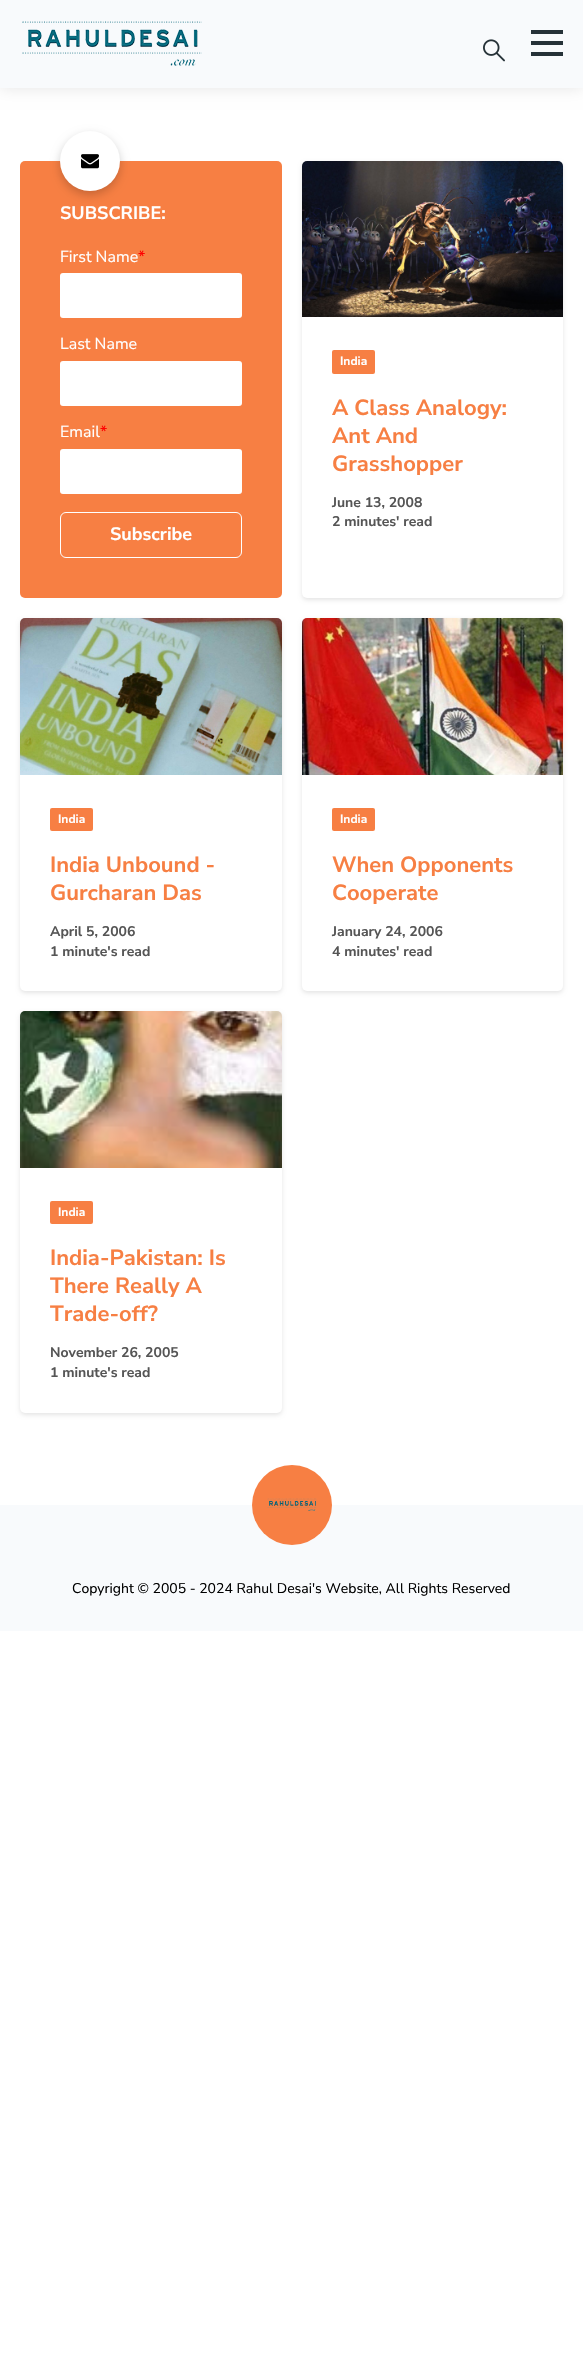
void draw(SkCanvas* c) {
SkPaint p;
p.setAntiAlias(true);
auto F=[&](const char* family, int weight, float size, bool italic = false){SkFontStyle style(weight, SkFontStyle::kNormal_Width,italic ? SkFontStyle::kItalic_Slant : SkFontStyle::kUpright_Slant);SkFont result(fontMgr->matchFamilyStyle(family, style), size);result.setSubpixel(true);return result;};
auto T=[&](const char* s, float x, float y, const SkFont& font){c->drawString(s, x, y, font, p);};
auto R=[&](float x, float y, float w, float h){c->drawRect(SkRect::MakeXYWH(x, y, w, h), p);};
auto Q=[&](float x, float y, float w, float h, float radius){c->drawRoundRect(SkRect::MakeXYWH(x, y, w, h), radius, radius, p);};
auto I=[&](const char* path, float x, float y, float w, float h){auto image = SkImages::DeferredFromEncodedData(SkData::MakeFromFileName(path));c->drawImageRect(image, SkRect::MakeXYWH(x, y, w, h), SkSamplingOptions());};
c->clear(0xffffffff);
p.setColor(0x1a000000);
p.setMaskFilter(SkMaskFilter::MakeBlur(kNormal_SkBlurStyle, 7.5));
c->drawRect(SkRect::MakeXYWH(0,0,583,88),p);
p.setMaskFilter(nullptr);
p.setColor(0xfff8fafc);
R(0,0,583,88);
I("1.png",22,21,180,45);
I("2.png",483,39,22,23);
p.setColor(0xff263238);
R(531,30,32,4);
R(531,41,32,4);
R(531,52,32,4);
p.setColor(0xfff77f43);
Q(20,161,262,437,5);
p.setColor(0x33000000);
p.setMaskFilter(SkMaskFilter::MakeBlur(kNormal_SkBlurStyle, 5));
c->drawRoundRect(SkRect::MakeXYWH(60,135,60,60),30,30,p);
p.setMaskFilter(nullptr);
p.setColor(0xffffffff);
c->drawCircle(90,161,30,p);
I("3.png",81,154,18,15);
auto f1 = F("Nunito Sans",700,18);
T("SUBSCRIBE:",60,219,f1);
auto f2 = F("Nunito Sans",400,16);
T("First Name",60,262,f2);
p.setColor(0xffff0000);
T("*",138,262,f2);
p.setColor(0xffffffff);
Q(60,273,182,45,3);
T("Last Name",60,349,f2);
Q(60,361,182,45,3);
T("Email",60,437,f2);
p.setColor(0xffff0000);
T("*",100,437,f2);
p.setColor(0xffffffff);
Q(60,449,182,45,3);
p.setStroke(true);
p.setStrokeWidth(1);
c->drawRoundRect(SkRect::MakeXYWH(60.5,512.5,181,45),5.5,5.5,p);
p.setStroke(false);
T("Subscribe",110,540,f1);
p.setColor(0x1a000000);
p.setMaskFilter(SkMaskFilter::MakeBlur(kNormal_SkBlurStyle, 2));
c->drawRoundRect(SkRect::MakeXYWH(302,163,261,437),5,5,p);
p.setMaskFilter(nullptr);
p.setColor(0xffffffff);
Q(302,161,261,437,5);
I("4.png",302,161,261,156);
p.setColor(0xfff77f43);
Q(332,350,43,24,2);
auto f3 = F("Nunito Sans",700,12);
p.setColor(0xffffffff);
T("India",340,365,f3);
auto f4 = F("Nunito Sans",700,22);
p.setColor(0xfff77f43);
T("A Class Analogy:",332,415,f4);
T("Ant And",332,443,f4);
T("Grasshopper",332,471,f4);
auto f5 = F("Nunito Sans",700,14);
p.setColor(0xff555555);
T("June 13, 2008",332,507,f5);
T("2 minutes' read",332,526,f5);
p.setColor(0x1a000000);
p.setMaskFilter(SkMaskFilter::MakeBlur(kNormal_SkBlurStyle, 2));
c->drawRoundRect(SkRect::MakeXYWH(20,620,262,373),5,5,p);
p.setMaskFilter(nullptr);
p.setColor(0xffffffff);
Q(20,618,262,373,5);
I("5.png",20,618,262,157);
p.setColor(0xfff77f43);
Q(50,808,43,23,2);
p.setColor(0xffffffff);
T("India",58,823,f3);
p.setColor(0xfff77f43);
T("India Unbound -",50,872,f4);
T("Gurcharan Das",50,900,f4);
p.setColor(0xff555555);
T("April 5, 2006",50,936,f5);
T("1 minute's read",50,956,f5);
p.setColor(0x1a000000);
p.setMaskFilter(SkMaskFilter::MakeBlur(kNormal_SkBlurStyle, 2));
c->drawRoundRect(SkRect::MakeXYWH(302,620,261,373),5,5,p);
p.setMaskFilter(nullptr);
p.setColor(0xffffffff);
Q(302,618,261,373,5);
I("6.png",302,618,261,157);
p.setColor(0xfff77f43);
Q(332,808,43,23,2);
p.setColor(0xffffffff);
T("India",340,823,f3);
p.setColor(0xfff77f43);
T("When Opponents",332,872,f4);
T("Cooperate",332,900,f4);
p.setColor(0xff555555);
T("January 24, 2006",332,936,f5);
T("4 minutes' read",332,956,f5);
p.setColor(0x1a000000);
p.setMaskFilter(SkMaskFilter::MakeBlur(kNormal_SkBlurStyle, 2));
c->drawRoundRect(SkRect::MakeXYWH(20,1013,262,402),5,5,p);
p.setMaskFilter(nullptr);
p.setColor(0xffffffff);
Q(20,1011,262,402,5);
I("7.png",20,1011,262,157);
p.setColor(0xfff77f43);
Q(50,1201,43,23,2);
p.setColor(0xffffffff);
T("India",58,1216,f3);
p.setColor(0xfff77f43);
T("India-Pakistan: Is",50,1265,f4);
T("There Really A",50,1293,f4);
T("Trade-off?",50,1321,f4);
p.setColor(0xff555555);
T("November 26, 2005",50,1357,f5);
T("1 minute's read",50,1377,f5);
p.setColor(0xfff8fafc);
R(0,1505,583,126);
p.setColor(0xfff77f43);
c->drawCircle(292,1505,40,p);
I("8.png",267,1498,50,13);
auto f6 = F("Nunito Sans",400,14);
p.setColor(0xff000000);
T("Copyright © 2005 - 2024 Rahul Desai's Website, All Rights Reserved",72,1593,f6);
}
